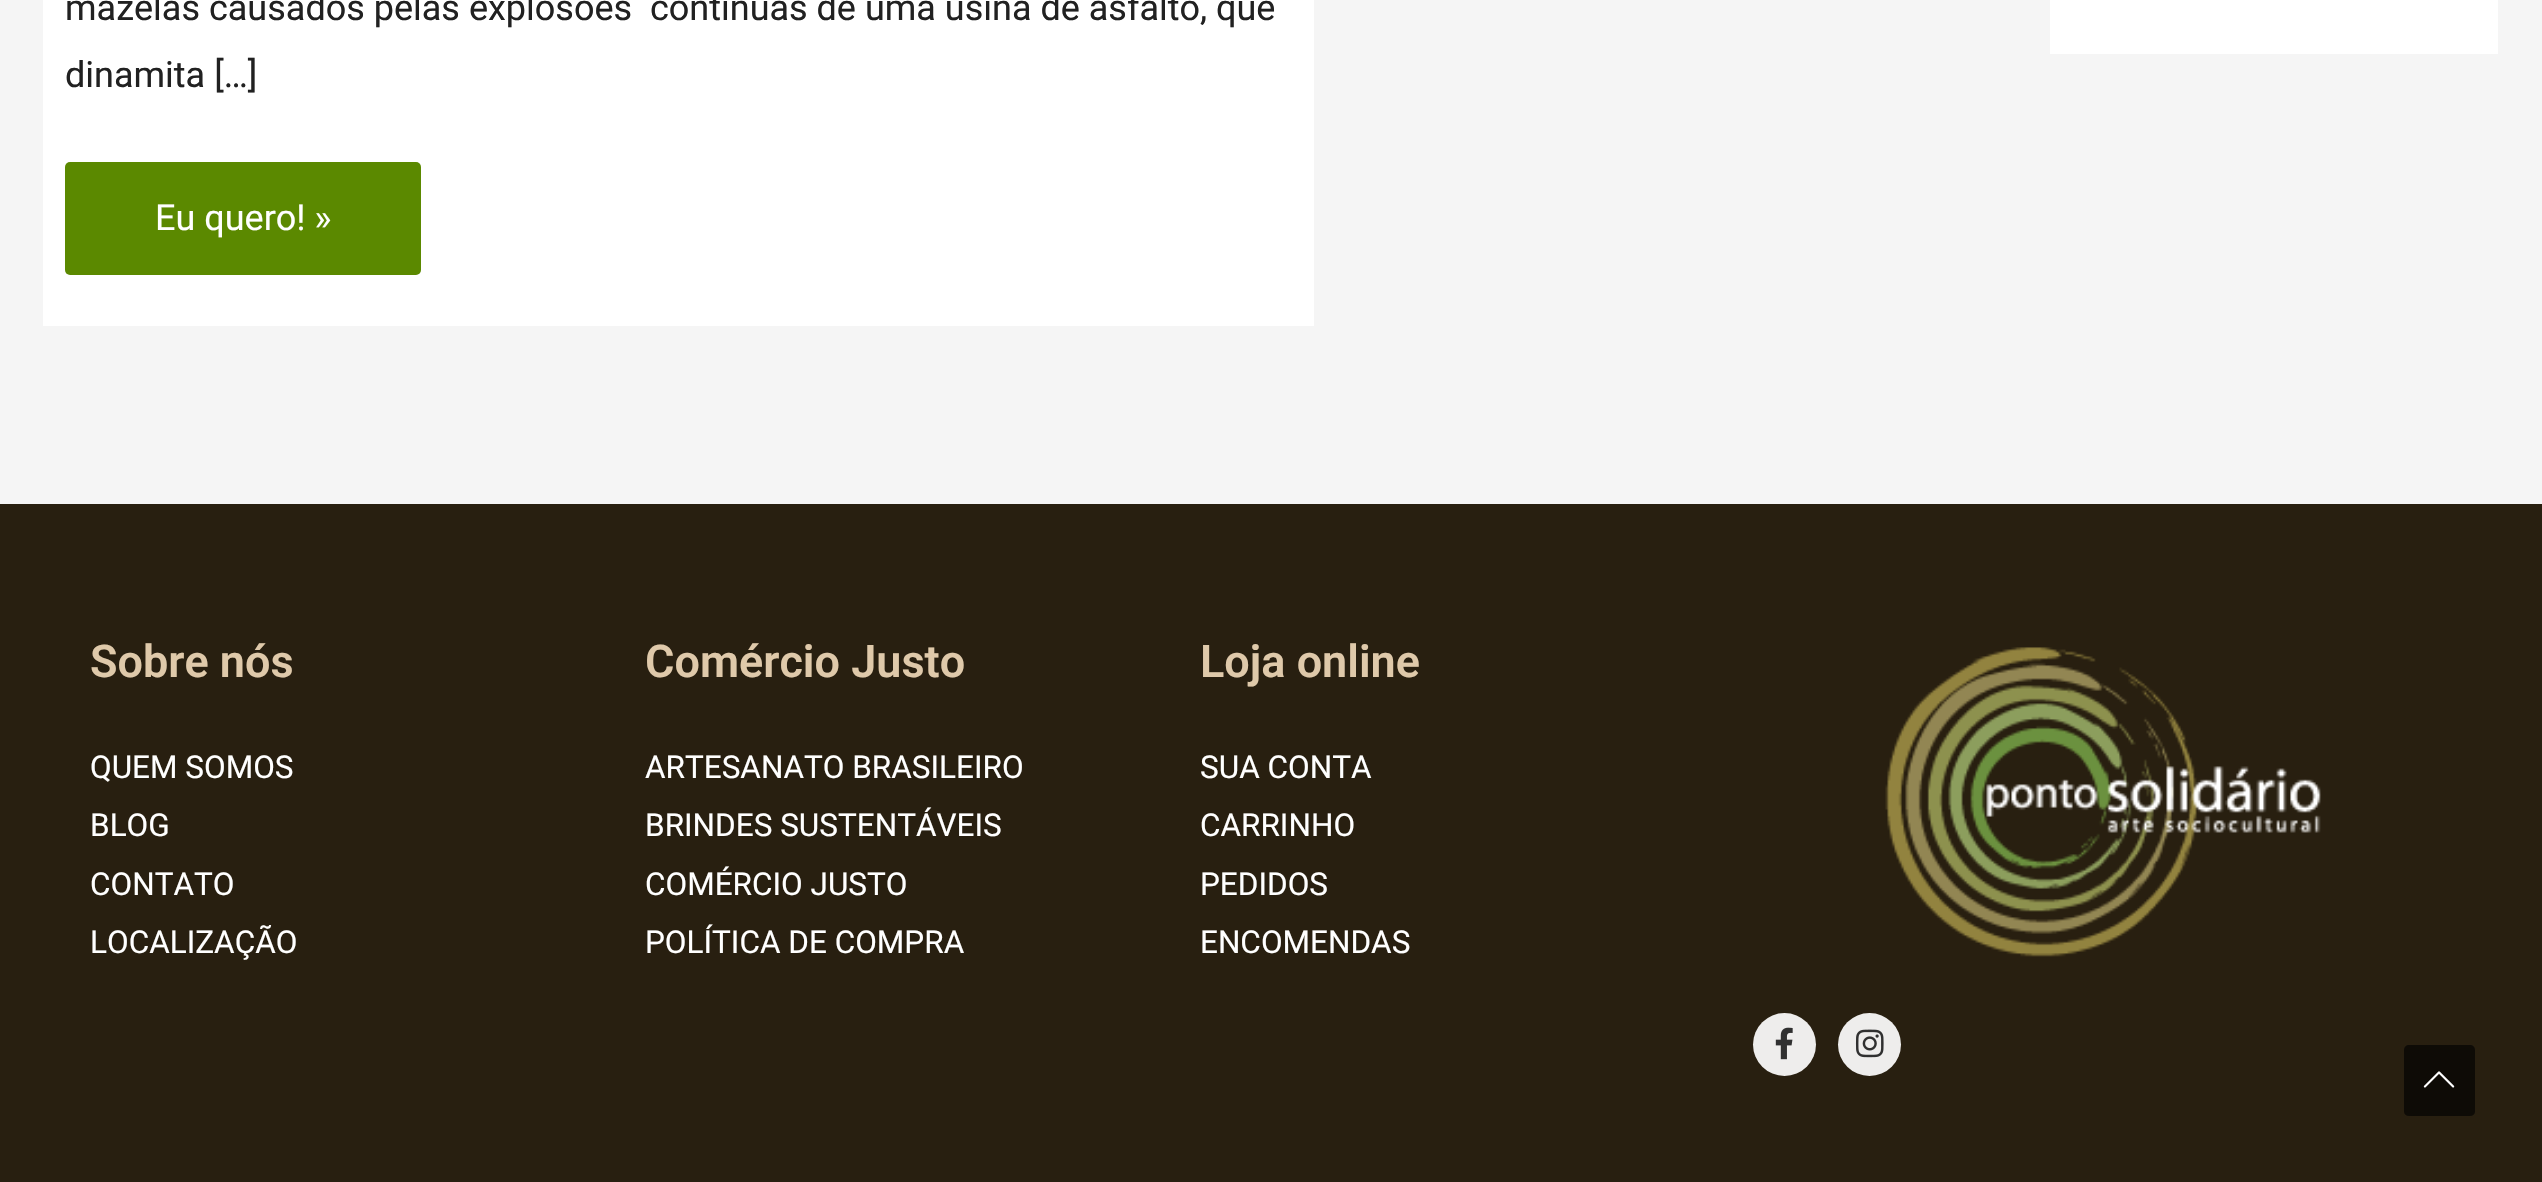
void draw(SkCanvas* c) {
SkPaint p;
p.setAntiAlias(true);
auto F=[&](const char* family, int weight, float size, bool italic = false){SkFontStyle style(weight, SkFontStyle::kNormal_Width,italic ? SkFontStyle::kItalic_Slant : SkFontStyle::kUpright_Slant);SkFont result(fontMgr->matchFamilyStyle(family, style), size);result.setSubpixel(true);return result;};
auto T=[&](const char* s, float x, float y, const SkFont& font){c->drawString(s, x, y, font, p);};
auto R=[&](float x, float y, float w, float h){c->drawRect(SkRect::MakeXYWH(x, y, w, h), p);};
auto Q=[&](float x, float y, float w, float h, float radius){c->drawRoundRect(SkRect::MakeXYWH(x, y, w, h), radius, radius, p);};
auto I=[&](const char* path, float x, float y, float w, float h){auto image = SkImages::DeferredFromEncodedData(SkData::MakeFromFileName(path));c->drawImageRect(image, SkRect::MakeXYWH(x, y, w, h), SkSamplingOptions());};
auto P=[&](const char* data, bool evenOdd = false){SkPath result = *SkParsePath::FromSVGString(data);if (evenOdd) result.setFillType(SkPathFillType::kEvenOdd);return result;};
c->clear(0xfff5f5f5);
p.setColor(0xffffffff);
R(43,0,1271,326);
auto f1 = F("Roboto",400,36);
p.setColor(0xff212121);
T("mazelas causados pelas explosões  continuas de uma usina de asfalto, que",65,20,f1);
T("dinamita […]",65,87,f1);
p.setColor(0xff5b8900);
Q(65,162,356,113,5);
p.setColor(0xffffffff);
T("Eu quero! »",155,230,f1);
R(2050,0,448,54);
p.setColor(0xff281f10);
R(0,504,2542,678);
auto f2 = F("Roboto",600,45);
p.setColor(0xffdfc9aa);
T("Sobre nós",90,677,f2);
auto f3 = F("Roboto",400,31.5);
p.setColor(0xffffffff);
T("QUEM SOMOS",90,778,f3);
T("BLOG",90,836,f3);
T("CONTATO",90,895,f3);
T("LOCALIZAÇÃO",90,953,f3);
p.setColor(0xffdfc9aa);
T("Comércio Justo",645,677,f2);
p.setColor(0xffffffff);
T("ARTESANATO BRASILEIRO",645,778,f3);
T("BRINDES SUSTENTÁVEIS",645,836,f3);
T("COMÉRCIO JUSTO",645,895,f3);
T("POLÍTICA DE COMPRA",645,953,f3);
p.setColor(0xffdfc9aa);
T("Loja online",1200,677,f2);
p.setColor(0xffffffff);
T("SUA CONTA",1200,778,f3);
T("CARRINHO",1200,836,f3);
T("PEDIDOS",1200,895,f3);
T("ENCOMENDAS",1200,953,f3);
I("1.png",1885,647,436,310);
p.setColor(0xffeeedec);
c->drawCircle(1784.5,1044.5,31.5,p);
I("2.png",1775,1027,18,33);
c->drawCircle(1869.5,1044.5,31.5,p);
I("3.png",1855,1029,29,29);
p.setColor(0xff0e0b06);
c->drawPath(P("M2470 1116h-61c-3 0-5-2-5-4v-62c0-3 2-5 5-5h61c3 0 5 2 5 5v62c0 2-2 4-5 4z"),p);
I("4.png",2423,1071,32,17);
}
